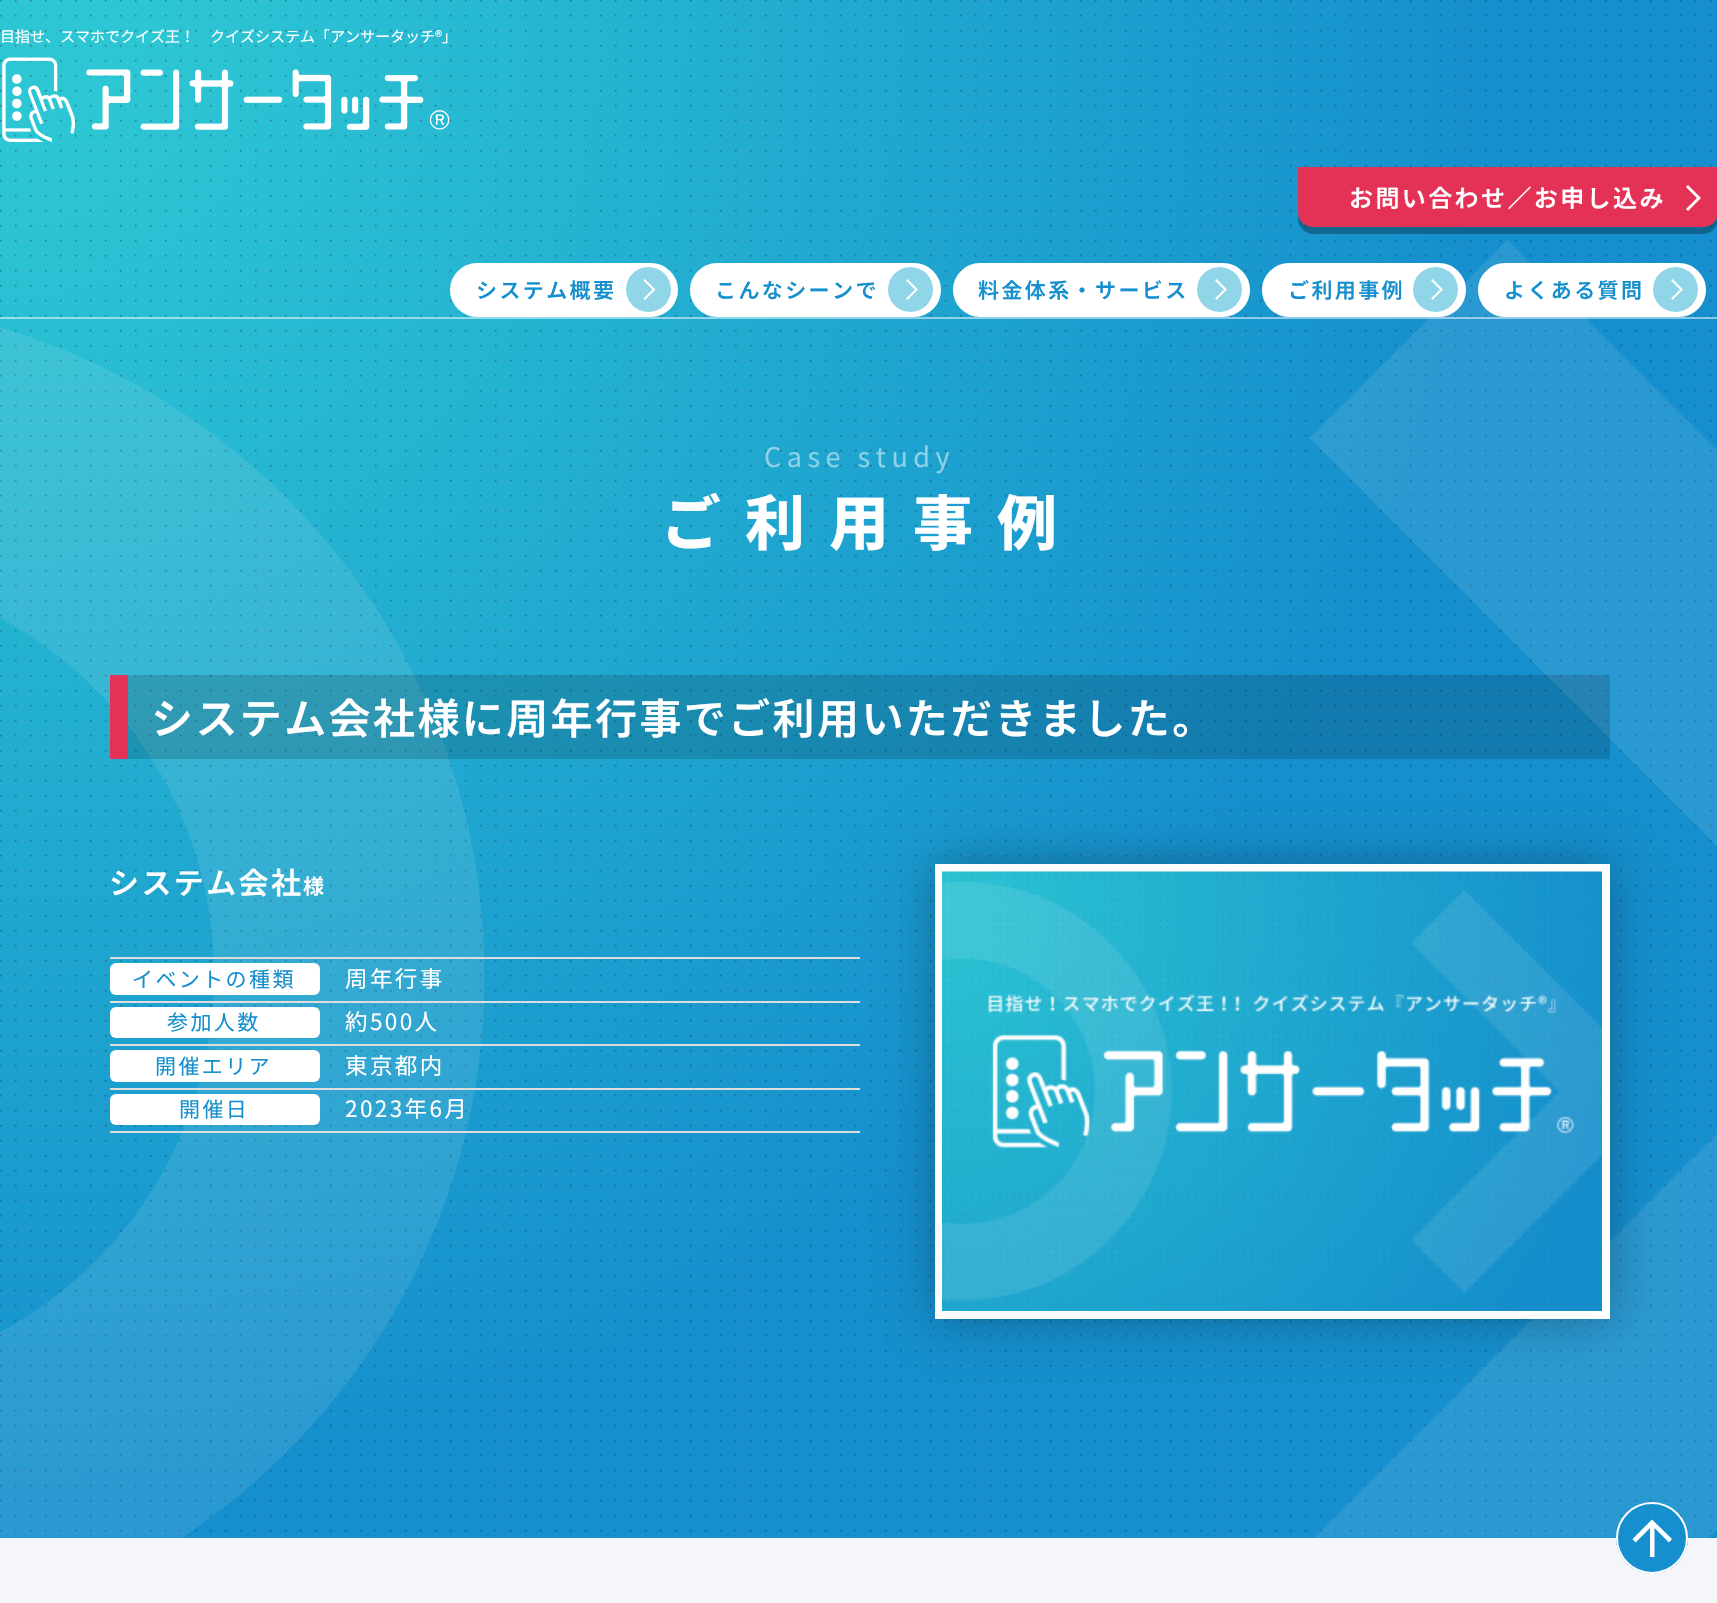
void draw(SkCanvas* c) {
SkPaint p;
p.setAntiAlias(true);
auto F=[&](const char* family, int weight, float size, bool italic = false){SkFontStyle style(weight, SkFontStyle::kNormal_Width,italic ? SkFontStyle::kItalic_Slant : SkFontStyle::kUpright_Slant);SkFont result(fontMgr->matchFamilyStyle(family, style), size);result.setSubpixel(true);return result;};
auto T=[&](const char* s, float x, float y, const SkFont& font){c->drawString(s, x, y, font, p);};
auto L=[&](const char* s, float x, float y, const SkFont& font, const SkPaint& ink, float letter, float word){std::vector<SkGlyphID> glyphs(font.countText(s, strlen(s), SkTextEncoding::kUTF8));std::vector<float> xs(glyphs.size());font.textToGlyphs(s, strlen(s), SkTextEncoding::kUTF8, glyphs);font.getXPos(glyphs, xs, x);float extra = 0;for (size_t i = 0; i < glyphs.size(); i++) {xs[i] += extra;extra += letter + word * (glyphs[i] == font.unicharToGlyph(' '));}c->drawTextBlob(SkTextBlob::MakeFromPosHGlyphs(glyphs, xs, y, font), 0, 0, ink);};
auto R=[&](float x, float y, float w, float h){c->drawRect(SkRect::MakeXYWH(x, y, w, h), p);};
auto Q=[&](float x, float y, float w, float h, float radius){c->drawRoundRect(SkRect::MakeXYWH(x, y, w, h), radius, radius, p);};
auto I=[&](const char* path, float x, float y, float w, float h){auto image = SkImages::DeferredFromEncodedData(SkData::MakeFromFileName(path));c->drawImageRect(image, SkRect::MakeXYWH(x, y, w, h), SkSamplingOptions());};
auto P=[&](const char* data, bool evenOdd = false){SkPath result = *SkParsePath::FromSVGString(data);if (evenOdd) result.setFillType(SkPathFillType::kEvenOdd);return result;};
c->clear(0xffffffff);
I("1.png",0,0,1717,1538);
p.setColor(0x80ffffff);
R(0,317,1717,2);
auto f1 = F("Noto Sans JP",400,15);
p.setColor(0xffffffff);
T("目指せ、スマホでクイズ王！　クイズシステム「アンサータッチ®」",0,42,f1);
I("2.png",2,57,448,85);
p.setColor(0x4d000000);
c->drawPath(P("M1298 215v4c0 8 7 15 15 15h390c8 0 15-7 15-15v-45v38c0 8-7 14-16 14h-390c-6 0-12-4-14-11z"),p);
p.setColor(0xffe43256);
c->drawPath(P("M1298 167h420v45c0 8.5-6.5 15-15 15h-390c-8.5 0-15-6.5-15-15z"),p);
p.setColor(0xffffffff);
c->drawPath(P("M1701 198l-13-13l-2 2l11 11l-11 11l2 2z",true),p);
auto f2 = F("Noto Sans JP",600,24);
L("お問い合わせ／お申し込み",1349,207,f2,p,2.4,0);
c->drawRoundRect(SkRect::MakeXYWH(451,264,226,52),26,26,p);
p.setStroke(true);
p.setStrokeWidth(2);
c->drawRoundRect(SkRect::MakeXYWH(451,264,226,52),26,26,p);
auto f3 = F("Noto Sans JP",600,21);
p.setStroke(false);
p.setColor(0xff158fcd);
L("システム概要",476,298,f3,p,2.4,0);
p.setColor(0xff90d5e8);
c->drawCircle(648.5,289.5,22.5,p);
p.setColor(0xffffffff);
c->drawPath(P("M655.5 289.5l-10.5-10.5l-1.5 1.5l9 9l-9 9l1.5 1.5z",true),p);
c->drawRoundRect(SkRect::MakeXYWH(691,264,249,52),26,26,p);
p.setStroke(true);
c->drawRoundRect(SkRect::MakeXYWH(691,264,249,52),26,26,p);
p.setStroke(false);
p.setColor(0xff158fcd);
L("こんなシーンで",715,298,f3,p,2.4,0);
p.setColor(0xff90d5e8);
c->drawCircle(910.5,289.5,22.5,p);
p.setColor(0xffffffff);
c->drawPath(P("M918 289.5l-10.5-10.5l-1.5 1.5l9 9l-9 9l1.5 1.5z",true),p);
c->drawRoundRect(SkRect::MakeXYWH(954,264,295,52),26,26,p);
p.setStroke(true);
c->drawRoundRect(SkRect::MakeXYWH(954,264,295,52),26,26,p);
p.setStroke(false);
p.setColor(0xff158fcd);
L("料金体系・サービス",978,298,f3,p,2.4,0);
p.setColor(0xff90d5e8);
c->drawCircle(1219.5,289.5,22.5,p);
p.setColor(0xffffffff);
c->drawPath(P("M1227 289.5l-10.5-10.5l-1.5 1.5l9 9l-9 9l1.5 1.5z",true),p);
c->drawRoundRect(SkRect::MakeXYWH(1263,264,202,52),26,26,p);
p.setStroke(true);
c->drawRoundRect(SkRect::MakeXYWH(1263,264,202,52),26,26,p);
p.setStroke(false);
p.setColor(0xff158fcd);
L("ご利用事例",1288,298,f3,p,2.4,0);
p.setColor(0xff90d5e8);
c->drawCircle(1435.5,289.5,22.5,p);
p.setColor(0xffffffff);
c->drawPath(P("M1443 289.5l-10.5-10.5l-1.5 1.5l9 9l-9 9l1.5 1.5z",true),p);
c->drawRoundRect(SkRect::MakeXYWH(1479,264,226,52),26,26,p);
p.setStroke(true);
c->drawRoundRect(SkRect::MakeXYWH(1479,264,226,52),26,26,p);
p.setStroke(false);
p.setColor(0xff158fcd);
L("よくある質問",1504,298,f3,p,2.4,0);
p.setColor(0xff90d5e8);
c->drawCircle(1675.5,289.5,22.5,p);
p.setColor(0xffffffff);
c->drawPath(P("M1683 289.5l-10.5-10.5l-1.5 1.5l9 9l-9 9l1.5 1.5z",true),p);
auto f4 = F("Noto Sans JP",400,27);
p.setColor(0xff8fd1e7);
L("Case study",764,467,f4,p,5.5,0);
auto f5 = F("Noto Sans JP",800,60);
p.setColor(0xffffffff);
L("ご利用事例",661,545,f5,p,24,0);
p.setColor(0x26000000);
R(128,675,1482,84);
p.setColor(0xffe43256);
R(110,675,18,84);
auto f6 = F("Noto Sans JP",600,42);
p.setColor(0xffffffff);
L("システム会社様に周年行事でご利用いただきました。",151,734,f6,p,2.4,0);
auto f7 = F("Noto Sans JP",600,30);
L("システム会社",109,894,f7,p,2.4,0);
L("様",303,894,f3,p,2.4,0);
Q(110,963,210,32,6);
auto f8 = F("Noto Sans JP",400,21);
p.setColor(0xff158fcd);
L("イベントの種類",132,987,f8,p,2.4,0);
p.setColor(0xffdddddd);
R(110,957,750,2);
auto f9 = F("Noto Sans JP",400,22.5);
p.setColor(0xffffffff);
L("周年行事",345,987,f9,p,2.4,0);
Q(110,1007,210,31,6);
p.setColor(0xff158fcd);
L("参加人数",167,1030,f8,p,2.4,0);
p.setColor(0xffdddddd);
R(110,1001,750,2);
p.setColor(0xffffffff);
L("約500人",345,1030,f9,p,2.4,0);
Q(110,1050,210,32,6);
p.setColor(0xff158fcd);
L("開催エリア",155,1074,f8,p,2.4,0);
p.setColor(0xffdddddd);
R(110,1044,750,2);
p.setColor(0xffffffff);
L("東京都内",345,1074,f9,p,2.4,0);
Q(110,1094,210,31,6);
p.setColor(0xff158fcd);
L("開催日",179,1117,f8,p,2.4,0);
p.setColor(0xffdddddd);
R(110,1088,750,2);
R(110,1131,750,2);
p.setColor(0xffffffff);
L("2023年6月",345,1117,f9,p,2.4,0);
p.setColor(0x4d000000);
p.setMaskFilter(SkMaskFilter::MakeBlur(kNormal_SkBlurStyle, 22.5));
c->drawRect(SkRect::MakeXYWH(935,864,675,455),p);
p.setMaskFilter(nullptr);
p.setColor(0xffffffff);
R(935,864,675,455);
I("3.png",942,871,660,440);
p.setColor(0xfff4f6fa);
R(0,1538,1717,65);
p.setColor(0xff158fcd);
c->drawCircle(1652,1538,36,p);
p.setColor(0xffffffff);
c->drawPath(P("M1652 1519.5l-19.5 19.5l3 3.5l14.5-14.5v29h4.5v-29l14.5 14.5l3-3.5z"),p);
p.setStroke(true);
c->drawCircle(1652,1538,35,p);
}
